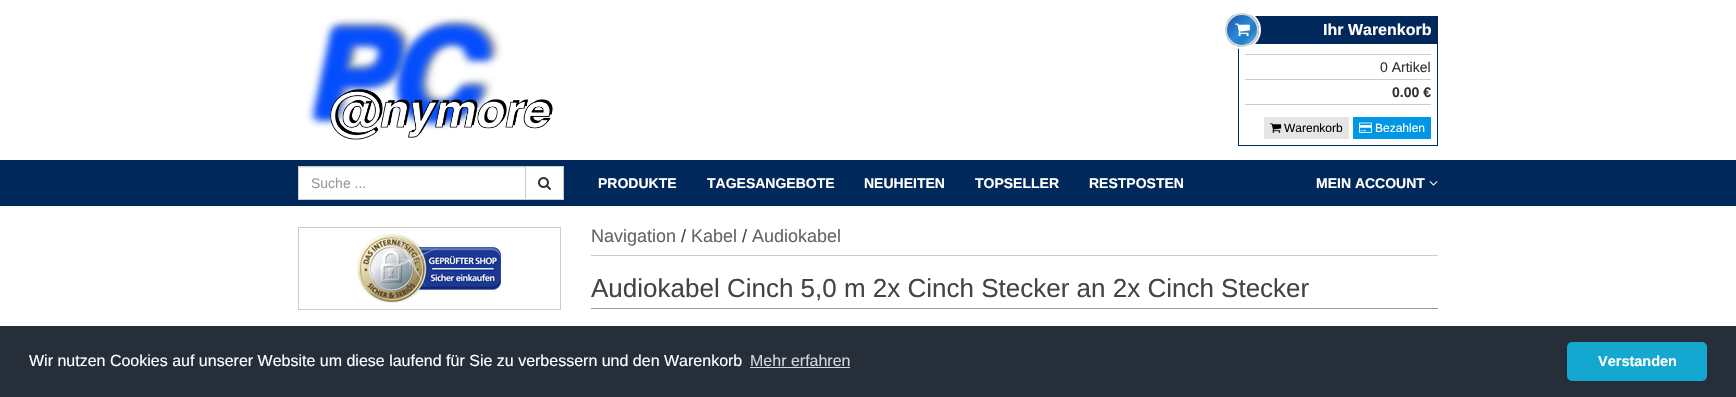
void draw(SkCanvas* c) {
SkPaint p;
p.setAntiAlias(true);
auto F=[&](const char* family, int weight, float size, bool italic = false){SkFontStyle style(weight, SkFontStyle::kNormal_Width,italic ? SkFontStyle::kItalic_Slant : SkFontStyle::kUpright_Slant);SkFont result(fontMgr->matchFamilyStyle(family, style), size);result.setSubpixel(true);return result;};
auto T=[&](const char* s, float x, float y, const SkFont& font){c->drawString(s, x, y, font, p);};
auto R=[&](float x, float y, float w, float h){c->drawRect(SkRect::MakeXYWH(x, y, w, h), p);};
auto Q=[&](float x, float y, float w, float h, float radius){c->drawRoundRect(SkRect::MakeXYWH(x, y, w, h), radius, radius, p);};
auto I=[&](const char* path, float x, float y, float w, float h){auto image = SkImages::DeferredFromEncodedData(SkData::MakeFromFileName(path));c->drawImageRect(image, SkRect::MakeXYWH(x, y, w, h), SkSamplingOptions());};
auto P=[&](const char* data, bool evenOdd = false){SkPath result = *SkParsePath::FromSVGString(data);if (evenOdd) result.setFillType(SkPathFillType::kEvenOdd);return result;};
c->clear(0xffffffff);
I("1.png",306,15,247,125);
p.setStroke(true);
p.setStrokeWidth(1);
p.setColor(0xff00285a);
c->drawRect(SkRect::MakeXYWH(1238.5,16.5,199,129),p);
p.setStroke(false);
R(1251,17,186,27);
p.setStroke(true);
p.setStrokeWidth(2);
p.setColor(0xffffffff);
c->drawCircle(1242,30,18,p);
c->save();
c->clipPath(P("M1242 13c9.5 0 17 7.5 17 17c0 9.5-7.5 17-17 17c-9.5 0-17-7.5-17-17c0-9.5 7.5-17 17-17z"),true);
p.setStroke(false);
{
const SkColor colors[] = {0xff1a549b,0xff2b88d9,0xff207cca,0xff7db9e8};
const float stops[] = {0,.5,.69,1};
const SkPoint ends[] = {{1227,15}, {1257,45}};
p.setShader(SkGradientShader::MakeLinear(ends, colors, stops, 4, SkTileMode::kClamp));
p.setAlpha(255);
}
R(1227,15,30,30);
c->restore();
p.setStroke(true);
p.setShader(nullptr);
p.setColor(0xffd5d5d5);
c->drawCircle(1242,30,16,p);
I("2.png",1235,23,15,14);
auto f1 = F("Liberation Sans",700,16);
p.setStroke(false);
p.setColor(0xffffffff);
T("Ihr Warenkorb",1323,35,f1);
p.setColor(0xffcccccc);
R(1245,54,186,1);
auto f2 = F("Liberation Sans",400,14);
p.setColor(0xff333333);
T("0 Artikel",1380,72,f2);
p.setColor(0xffcccccc);
R(1245,79,186,1);
auto f3 = F("Liberation Sans",700,14);
p.setColor(0xff333333);
T("0.00 €",1392,97,f3);
p.setColor(0xffcccccc);
R(1245,104,186,1);
p.setColor(0xffe5e5e5);
R(1264,117,85,22);
I("3.png",1270,123,12,10);
auto f4 = F("Liberation Sans",400,12);
p.setColor(0xff000000);
T("Warenkorb",1284,132,f4);
p.setColor(0xff0096e6);
R(1353,117,78,22);
I("4.png",1359,122,13,11);
p.setColor(0xffffffff);
T("Bezahlen",1375,132,f4);
p.setColor(0xff00285a);
R(0,160,1736,46);
p.setColor(0xffffffff);
R(299,168,226,31);
p.setColor(0xffececec);
R(299,167,226,1);
p.setStroke(true);
p.setStrokeWidth(1);
p.setColor(0xffcccccc);
c->drawRect(SkRect::MakeXYWH(298.5,166.5,227,33),p);
p.setStroke(false);
p.setColor(0xff999999);
T("Suche ...",311,188,f2);
p.setColor(0xffffffff);
c->drawRect(SkRect::MakeXYWH(525.5,166.5,38,33),p);
p.setStroke(true);
p.setColor(0xffcccccc);
c->drawRect(SkRect::MakeXYWH(525.5,166.5,38,33),p);
I("5.png",538,177,13,13);
p.setStroke(false);
p.setColor(0xffffffff);
T("PRODUKTE",598,188,f3);
T("TAGESANGEBOTE",707,188,f3);
T("NEUHEITEN",864,188,f3);
T("TOPSELLER",975,188,f3);
T("RESTPOSTEN",1089,188,f3);
T("MEIN ACCOUNT",1316,188,f3);
I("6.png",1429,181,9,5);
p.setStroke(true);
p.setColor(0xffcccccc);
c->drawRect(SkRect::MakeXYWH(298.5,227.5,262,82),p);
I("7.png",357,234,144,69);
p.setStroke(false);
R(591,255,847,1);
auto f5 = F("Liberation Sans",400,18);
p.setColor(0xff656565);
T("Navigation",591,242,f5);
p.setColor(0xff444444);
T("/",681,242,f5);
p.setColor(0xff656565);
T("Kabel",691,242,f5);
p.setColor(0xff444444);
T("/",742,242,f5);
p.setColor(0xff656565);
T("Audiokabel",752,242,f5);
p.setColor(0xff999999);
R(591,308,847,1);
auto f6 = F("Liberation Sans",400,26);
p.setColor(0xff444444);
T("Audiokabel Cinch 5,0 m 2x Cinch Stecker an 2x Cinch Stecker",591,297,f6);
p.setColor(0xff252e39);
R(0,326,1736,71);
auto f7 = F("Liberation Sans",400,16);
p.setColor(0xffffffff);
T("Wir nutzen Cookies auf unserer Website um diese laufend für Sie zu verbessern und den Warenkorb",29,366,f7);
p.setColor(0xffd3d5d7);
T("Mehr erfahren",750,366,f7);
R(750,367,100,1);
p.setColor(0xff14a7d0);
Q(1567,342,140,39,5);
auto f8 = F("Liberation Sans",700,14.5);
p.setColor(0xffffffff);
T("Verstanden",1598,366,f8);
}
